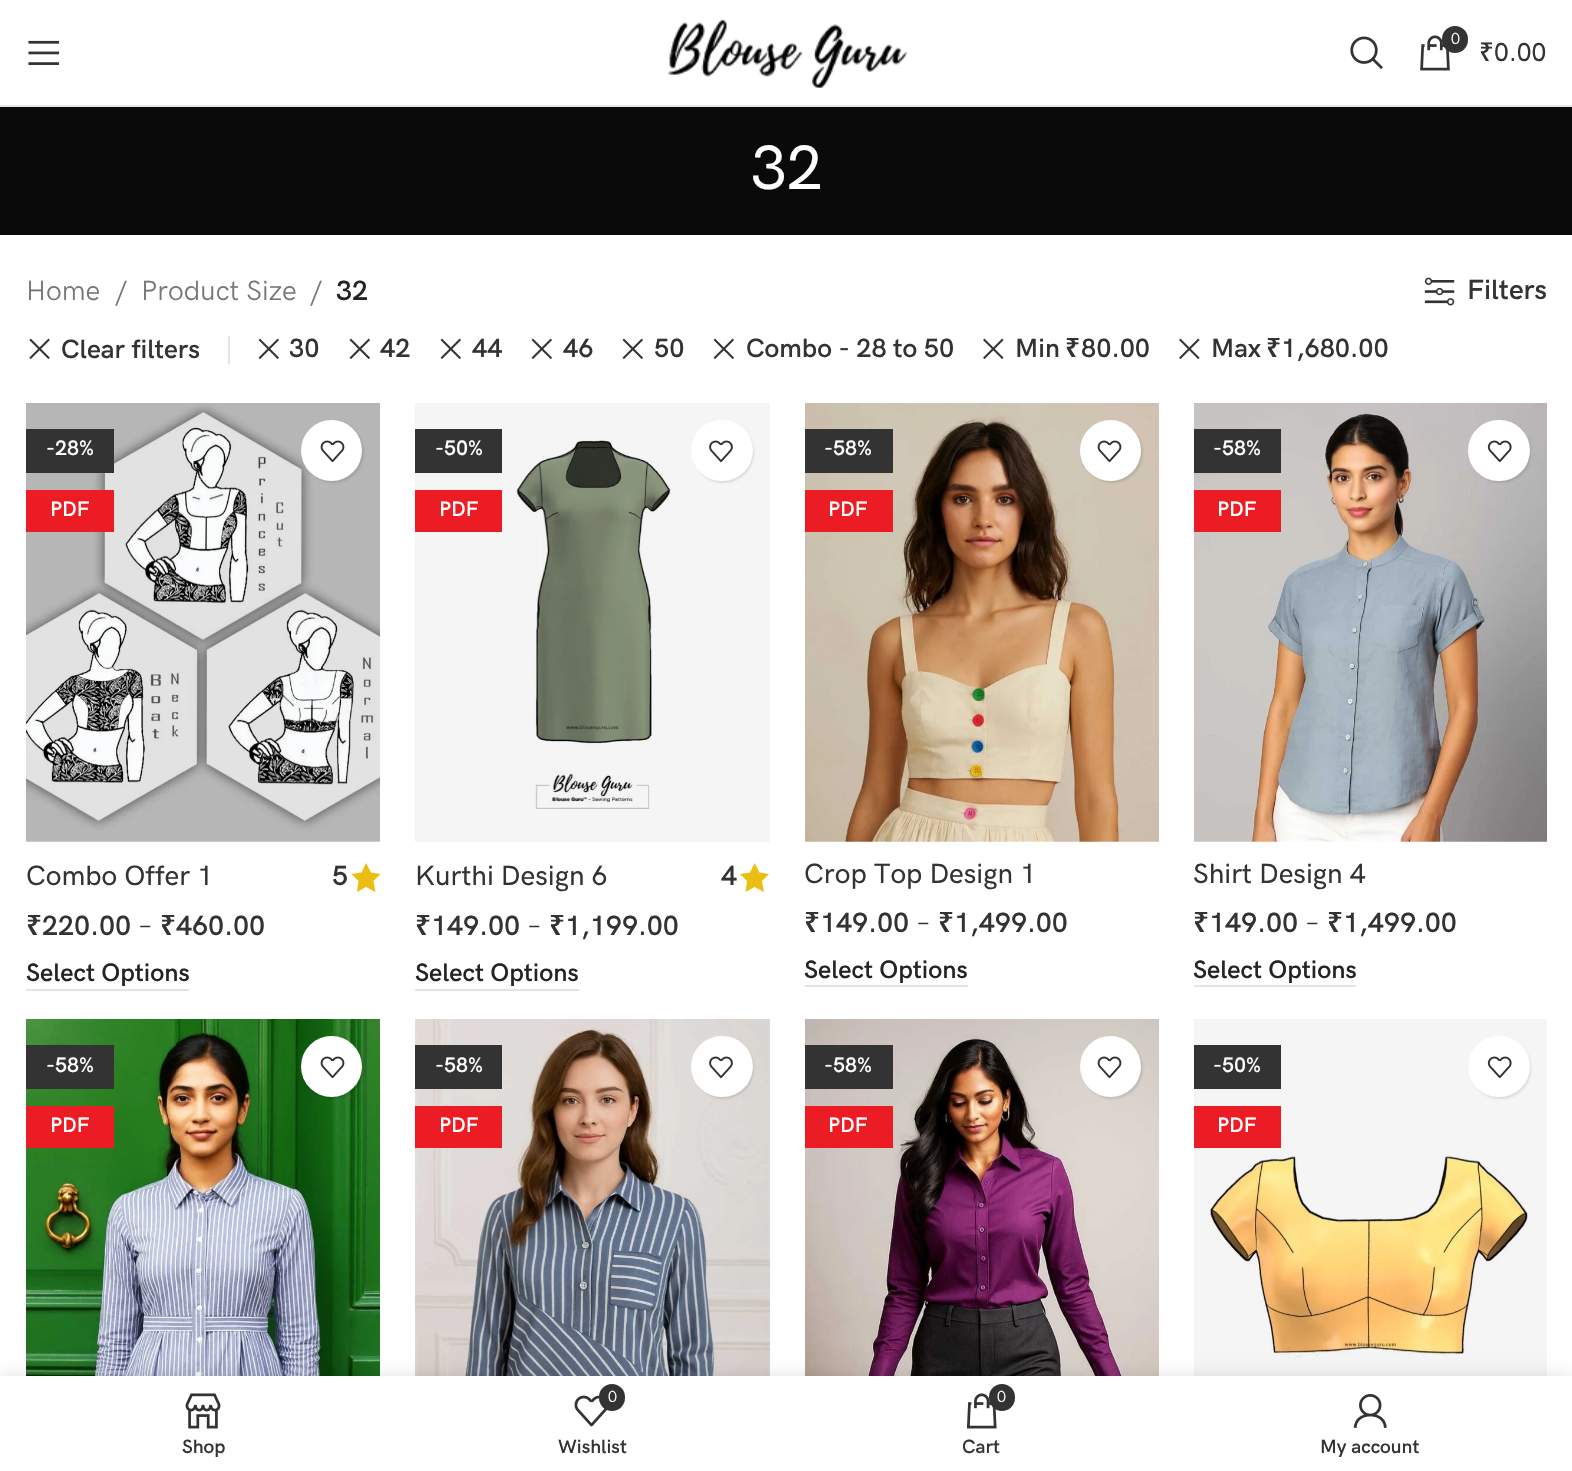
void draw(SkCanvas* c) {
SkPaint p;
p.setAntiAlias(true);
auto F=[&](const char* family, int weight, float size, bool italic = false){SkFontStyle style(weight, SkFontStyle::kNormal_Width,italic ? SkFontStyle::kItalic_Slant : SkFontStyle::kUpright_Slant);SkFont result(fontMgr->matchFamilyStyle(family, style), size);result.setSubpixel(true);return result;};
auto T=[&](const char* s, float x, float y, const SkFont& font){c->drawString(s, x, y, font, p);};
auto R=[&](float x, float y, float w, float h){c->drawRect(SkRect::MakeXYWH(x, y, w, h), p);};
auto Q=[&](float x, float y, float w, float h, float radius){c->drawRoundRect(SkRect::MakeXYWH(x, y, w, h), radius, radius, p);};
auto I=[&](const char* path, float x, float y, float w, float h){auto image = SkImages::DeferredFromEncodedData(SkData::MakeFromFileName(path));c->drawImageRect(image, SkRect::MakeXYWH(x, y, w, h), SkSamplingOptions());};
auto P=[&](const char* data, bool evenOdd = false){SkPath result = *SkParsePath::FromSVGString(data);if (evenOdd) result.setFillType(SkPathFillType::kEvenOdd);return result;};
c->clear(0xffffffff);
p.setColor(0xffe6e6e6);
R(0,105,1572,2);
I("1.png",28,40,32,25);
I("2.png",668,19,239,69);
I("3.png",1350,36,33,34);
I("4.png",1420,35,30,36);
p.setColor(0xff333333);
Q(1442,26,26,27,13);
auto f1 = F("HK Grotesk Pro",400,16);
p.setColor(0xffffffff);
T("0",1451,44,f1);
auto f2 = F("Noto Sans",500,26);
p.setColor(0xff333333);
T("₹",1479,61,f2);
auto f3 = F("HK Grotesk Pro",500,26);
T("0.00",1494,61,f3);
p.setColor(0xff0a0a0a);
R(0,107,1572,128);
auto f4 = F("HK Grotesk Pro",500,63);
p.setColor(0xffffffff);
T("32",751,189,f4);
auto f5 = F("HK Grotesk Pro",400,28);
p.setColor(0xff767676);
T("Home",26,300,f5);
T("/",115,300,f5);
T("Product Size",141,300,f5);
T("/",310,300,f5);
auto f6 = F("HK Grotesk Pro",600,28);
p.setColor(0xff242424);
T("32",336,300,f6);
I("5.png",1424,277,31,29);
p.setColor(0xff333333);
T("Filters",1467,299,f6);
p.setColor(0xffe4e4e4);
R(228,336,2,28);
I("6.png",29,338,21,22);
auto f7 = F("HK Grotesk Pro",600,26.5);
p.setColor(0xff333333);
T("Clear filters",61,358,f7);
I("7.png",258,338,21,22);
T("30",289,357,f7);
I("7.png",349,338,21,22);
T("42",380,357,f7);
I("7.png",440,338,21,22);
T("44",472,357,f7);
I("7.png",531,338,21,22);
T("46",563,357,f7);
I("7.png",622,338,21,22);
T("50",654,357,f7);
I("7.png",713,338,21,22);
T("Combo - 28 to 50",746,357,f7);
I("8.png",983,338,21,22);
T("Min",1015,357,f7);
auto f8 = F("Noto Sans",600,26.5);
T("₹",1065,357,f8);
T("80.00",1081,357,f7);
I("8.png",1179,338,21,22);
T("Max",1211,357,f7);
T("₹",1266,357,f8);
T("1,680.00",1281,357,f7);
I("9.png",26,403,354,439);
R(26,429,88,44);
auto f9 = F("HK Grotesk Pro",600,21);
p.setColor(0xffffffff);
T("-28%",46,455,f9);
p.setColor(0xffec1c24);
R(26,490,88,42);
p.setColor(0xffffffff);
T("PDF",50,516,f9);
p.setColor(0x1a000000);
p.setMaskFilter(SkMaskFilter::MakeBlur(kNormal_SkBlurStyle, 1));
c->drawRoundRect(SkRect::MakeXYWH(303,422,61,61),30.5,30.5,p);
p.setMaskFilter(nullptr);
p.setColor(0xffffffff);
c->drawCircle(331.5,450.5,30.5,p);
I("10.png",320,440,25,22);
auto f10 = F("HK Grotesk Pro",500,28);
p.setColor(0xff333333);
T("Combo Offer 1",26,885,f10);
T("5",332,885,f6);
p.setColor(0xffeabe12);
c->drawPath(P("M366 863l-4.5 9.5l-10 1.5l7 7l-1.5 11l9-5l9.5 5l-2-11l7-7l-9.5-1.5z"),p);
auto f11 = F("Noto Sans",600,28);
p.setColor(0xff333333);
T("₹",26,935,f11);
T("220.00",42,935,f6);
T("–",138,935,f5);
T("₹",160,935,f11);
T("460.00",176,935,f6);
p.setColor(0xffe4e4e4);
R(26,989,163,2);
auto f12 = F("HK Grotesk Pro",600,25.25);
p.setColor(0xff242424);
T("Select Options",26,981,f12);
I("11.png",415,403,355,439);
p.setColor(0xff333333);
R(415,429,87,44);
p.setColor(0xffffffff);
T("-50%",435,455,f9);
p.setColor(0xffec1c24);
R(415,490,87,42);
p.setColor(0xffffffff);
T("PDF",439,516,f9);
p.setColor(0x1a000000);
p.setMaskFilter(SkMaskFilter::MakeBlur(kNormal_SkBlurStyle, 1));
c->drawRoundRect(SkRect::MakeXYWH(693,422,61,61),30.5,30.5,p);
p.setMaskFilter(nullptr);
p.setColor(0xffffffff);
Q(691,420,62,61,30.5);
I("12.png",709,440,24,22);
p.setColor(0xff333333);
T("Kurthi Design 6",415,885,f10);
T("4",721,885,f6);
p.setColor(0xffeabe12);
c->drawPath(P("M754.5 863l-4.5 9.5l-10 1.5l7 7l-1.5 11l9-5l9.5 5l-2-11l7-7l-9.5-1.5z"),p);
p.setColor(0xff333333);
T("₹",415,935,f11);
T("149.00",431,935,f6);
T("–",527,935,f5);
T("₹",549,935,f11);
T("1,199.00",565,935,f6);
p.setColor(0xffe4e4e4);
R(415,989,164,2);
p.setColor(0xff242424);
T("Select Options",415,981,f12);
I("13.png",805,403,354,439);
p.setColor(0xff333333);
R(805,429,88,44);
p.setColor(0xffffffff);
T("-58%",824,455,f9);
p.setColor(0xffec1c24);
R(805,490,88,42);
p.setColor(0xffffffff);
T("PDF",828,516,f9);
p.setColor(0x1a000000);
p.setMaskFilter(SkMaskFilter::MakeBlur(kNormal_SkBlurStyle, 1));
c->drawRoundRect(SkRect::MakeXYWH(1082,422,61,61),30.5,30.5,p);
p.setMaskFilter(nullptr);
p.setColor(0xffffffff);
c->drawCircle(1110.5,450.5,30.5,p);
I("10.png",1097,440,25,22);
p.setColor(0xff333333);
T("Crop Top Design 1",804,883,f10);
T("₹",804,932,f11);
T("149.00",820,932,f6);
T("–",916,932,f5);
T("₹",938,932,f11);
T("1,499.00",954,932,f6);
p.setColor(0xffe4e4e4);
R(805,985,163,2);
p.setColor(0xff242424);
T("Select Options",804,978,f12);
I("14.png",1194,403,353,439);
p.setColor(0xff333333);
R(1194,429,87,44);
p.setColor(0xffffffff);
T("-58%",1213,455,f9);
p.setColor(0xffec1c24);
R(1194,490,87,42);
p.setColor(0xffffffff);
T("PDF",1217,516,f9);
p.setColor(0x1a000000);
p.setMaskFilter(SkMaskFilter::MakeBlur(kNormal_SkBlurStyle, 1));
c->drawRoundRect(SkRect::MakeXYWH(1470,422,61,61),30.5,30.5,p);
p.setMaskFilter(nullptr);
p.setColor(0xffffffff);
Q(1468,420,62,61,30.5);
I("15.png",1487,440,25,22);
p.setColor(0xff333333);
T("Shirt Design 4",1193,883,f10);
T("₹",1193,932,f11);
T("149.00",1209,932,f6);
T("–",1305,932,f5);
T("₹",1327,932,f11);
T("1,499.00",1343,932,f6);
p.setColor(0xffe4e4e4);
R(1194,985,162,2);
p.setColor(0xff242424);
T("Select Options",1193,978,f12);
I("16.png",26,1019,354,357);
p.setColor(0xff333333);
R(26,1045,88,44);
p.setColor(0xffffffff);
T("-58%",46,1072,f9);
p.setColor(0xffec1c24);
R(26,1106,88,42);
p.setColor(0xffffffff);
T("PDF",50,1132,f9);
p.setColor(0x1a000000);
p.setMaskFilter(SkMaskFilter::MakeBlur(kNormal_SkBlurStyle, 1));
c->drawRoundRect(SkRect::MakeXYWH(303,1038,61,61),30.5,30.5,p);
p.setMaskFilter(nullptr);
p.setColor(0xffffffff);
c->drawCircle(331.5,1066.5,30.5,p);
I("10.png",320,1056,25,22);
I("17.png",415,1019,355,357);
p.setColor(0xff333333);
R(415,1045,87,44);
p.setColor(0xffffffff);
T("-58%",435,1072,f9);
p.setColor(0xffec1c24);
R(415,1106,87,42);
p.setColor(0xffffffff);
T("PDF",439,1132,f9);
p.setColor(0x1a000000);
p.setMaskFilter(SkMaskFilter::MakeBlur(kNormal_SkBlurStyle, 1));
c->drawRoundRect(SkRect::MakeXYWH(693,1038,61,61),30.5,30.5,p);
p.setMaskFilter(nullptr);
p.setColor(0xffffffff);
Q(691,1036,62,61,30.5);
I("12.png",709,1056,24,22);
I("18.png",805,1019,354,357);
p.setColor(0xff333333);
R(805,1045,88,44);
p.setColor(0xffffffff);
T("-58%",824,1072,f9);
p.setColor(0xffec1c24);
R(805,1106,88,42);
p.setColor(0xffffffff);
T("PDF",828,1132,f9);
p.setColor(0x1a000000);
p.setMaskFilter(SkMaskFilter::MakeBlur(kNormal_SkBlurStyle, 1));
c->drawRoundRect(SkRect::MakeXYWH(1082,1038,61,61),30.5,30.5,p);
p.setMaskFilter(nullptr);
p.setColor(0xffffffff);
c->drawCircle(1110.5,1066.5,30.5,p);
I("10.png",1097,1056,25,22);
I("19.png",1194,1019,353,357);
p.setColor(0xff333333);
R(1194,1045,87,44);
p.setColor(0xffffffff);
T("-50%",1213,1072,f9);
p.setColor(0xffec1c24);
R(1194,1106,87,42);
p.setColor(0xffffffff);
T("PDF",1217,1132,f9);
p.setColor(0x1a000000);
p.setMaskFilter(SkMaskFilter::MakeBlur(kNormal_SkBlurStyle, 1));
c->drawRoundRect(SkRect::MakeXYWH(1470,1038,61,61),30.5,30.5,p);
p.setMaskFilter(nullptr);
p.setColor(0xffffffff);
Q(1468,1036,62,61,30.5);
I("15.png",1487,1056,25,22);
p.setColor(0x1f000000);
p.setMaskFilter(SkMaskFilter::MakeBlur(kNormal_SkBlurStyle, 8));
c->drawRect(SkRect::MakeXYWH(0,1376,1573,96),p);
p.setMaskFilter(nullptr);
p.setColor(0xffffffff);
R(0,1376,1572,95);
I("20.png",185,1393,36,36);
auto f13 = F("HK Grotesk Pro",600,19.25);
p.setColor(0xff333333);
T("Shop",182,1453,f13);
I("21.png",574,1395,33,32);
Q(599,1384,26,27,13);
p.setColor(0xffffffff);
T("0",608,1402,f1);
p.setColor(0xff333333);
T("Wishlist",558,1453,f13);
I("22.png",966,1393,31,36);
Q(989,1384,26,27,13);
p.setColor(0xffffffff);
T("0",997,1402,f1);
p.setColor(0xff333333);
T("Cart",962,1453,f13);
I("23.png",1353,1394,34,34);
T("My account",1320,1453,f13);
}
